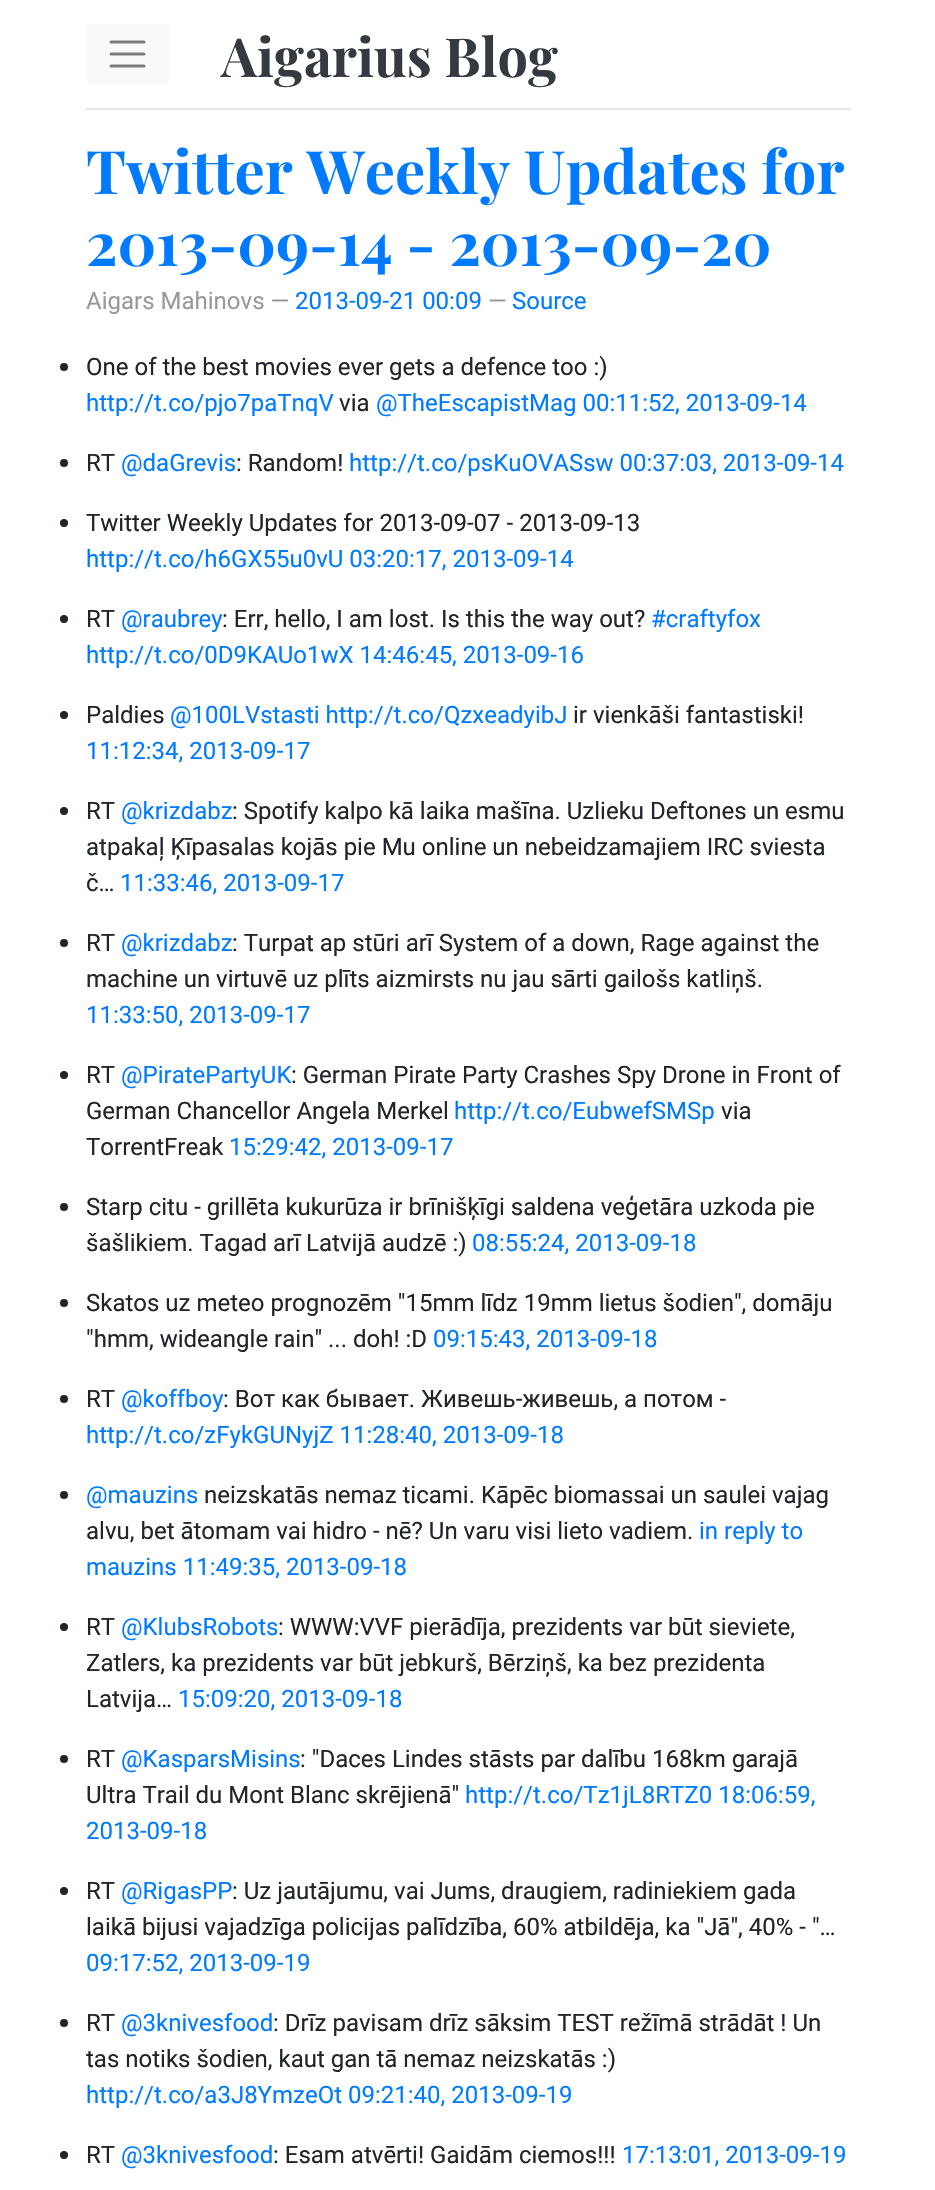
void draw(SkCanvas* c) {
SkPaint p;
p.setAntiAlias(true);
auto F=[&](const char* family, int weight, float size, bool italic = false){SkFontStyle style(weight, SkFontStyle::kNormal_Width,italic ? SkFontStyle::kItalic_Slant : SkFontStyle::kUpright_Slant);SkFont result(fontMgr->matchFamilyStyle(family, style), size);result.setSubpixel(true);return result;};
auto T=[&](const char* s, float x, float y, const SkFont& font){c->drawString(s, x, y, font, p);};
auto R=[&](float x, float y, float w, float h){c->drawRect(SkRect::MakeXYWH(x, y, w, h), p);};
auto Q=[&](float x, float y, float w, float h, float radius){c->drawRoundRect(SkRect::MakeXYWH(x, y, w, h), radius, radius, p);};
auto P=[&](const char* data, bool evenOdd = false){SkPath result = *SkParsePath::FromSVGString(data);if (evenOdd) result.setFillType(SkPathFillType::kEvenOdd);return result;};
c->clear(0xffffffff);
p.setColor(0xffe5e5e5);
R(86,108,765,2);
p.setColor(0xfff8f9fa);
Q(86,24,84,60,6);
p.setStroke(true);
p.setStrokeWidth(3);
p.setStrokeCap(SkPaint::kRound_Cap);
p.setColor(0xff7c7d7d);
c->drawPath(P("M111 42h33m-33 12h33m-33 12h33"),p);
auto f1 = F("Playfair Display",700,54);
p.setStroke(false);
p.setColor(0xff343a40);
T("Aigarius Blog",221,77,f1);
auto f2 = F("Playfair Display",700,60);
p.setColor(0xff007bff);
T("Twitter Weekly Updates for",86,194,f2);
T("2013-09-14 - 2013-09-20",86,266,f2);
auto f3 = F("Roboto",400,24);
p.setColor(0xff999999);
T("Aigars Mahinovs —",86,309,f3);
p.setColor(0xff007bff);
T("2013-09-21 00:09",295,309,f3);
p.setColor(0xff999999);
T("—",488,309,f3);
p.setColor(0xff007bff);
T("Source",512,309,f3);
p.setColor(0xff212529);
c->drawCircle(64,367,4,p);
T("One of the best movies ever gets a defence too :)",86,375,f3);
p.setColor(0xff007bff);
T("http://t.co/pjo7paTnqV",86,411,f3);
p.setColor(0xff212529);
T("via",339,411,f3);
p.setColor(0xff007bff);
T("@TheEscapistMag 00:11:52, 2013-09-14",376,411,f3);
p.setColor(0xff212529);
c->drawCircle(64,463,4,p);
T("RT",86,471,f3);
p.setColor(0xff007bff);
T("@daGrevis",121,471,f3);
p.setColor(0xff212529);
T(": Random!",236,471,f3);
p.setColor(0xff007bff);
T("http://t.co/psKuOVASsw 00:37:03, 2013-09-14",349,471,f3);
p.setColor(0xff212529);
c->drawCircle(64,523,4,p);
T("Twitter Weekly Updates for 2013-09-07 - 2013-09-13",86,531,f3);
p.setColor(0xff007bff);
T("http://t.co/h6GX55u0vU 03:20:17, 2013-09-14",86,567,f3);
p.setColor(0xff212529);
c->drawCircle(64,619,4,p);
T("RT",86,627,f3);
p.setColor(0xff007bff);
T("@raubrey",121,627,f3);
p.setColor(0xff212529);
T(": Err, hello, I am lost. Is this the way out?",222,627,f3);
p.setColor(0xff007bff);
T("#craftyfox",651,627,f3);
T("http://t.co/0D9KAUo1wX 14:46:45, 2013-09-16",86,663,f3);
p.setColor(0xff212529);
c->drawCircle(64,715,4,p);
T("Paldies",86,723,f3);
p.setColor(0xff007bff);
T("@100LVstasti http://t.co/QzxeadyibJ",170,723,f3);
p.setColor(0xff212529);
T("ir vienkāši fantastiski!",573,723,f3);
p.setColor(0xff007bff);
T("11:12:34, 2013-09-17",86,759,f3);
p.setColor(0xff212529);
c->drawCircle(64,811,4,p);
T("RT",86,819,f3);
p.setColor(0xff007bff);
T("@krizdabz",121,819,f3);
p.setColor(0xff212529);
T(": Spotify kalpo kā laika mašīna. Uzlieku Deftones un esmu",232,819,f3);
T("atpakaļ Ķīpasalas kojās pie Mu online un nebeidzamajiem IRC sviesta",86,855,f3);
T("č…",86,891,f3);
p.setColor(0xff007bff);
T("11:33:46, 2013-09-17",120,891,f3);
p.setColor(0xff212529);
c->drawCircle(64,943,4,p);
T("RT",86,951,f3);
p.setColor(0xff007bff);
T("@krizdabz",121,951,f3);
p.setColor(0xff212529);
T(": Turpat ap stūri arī System of a down, Rage against the",232,951,f3);
T("machine un virtuvē uz plīts aizmirsts nu jau sārti gailošs katliņš.",86,987,f3);
p.setColor(0xff007bff);
T("11:33:50, 2013-09-17",86,1023,f3);
p.setColor(0xff212529);
c->drawCircle(64,1075,4,p);
T("RT",86,1083,f3);
p.setColor(0xff007bff);
T("@PiratePartyUK",121,1083,f3);
p.setColor(0xff212529);
T(": German Pirate Party Crashes Spy Drone in Front of",291,1083,f3);
T("German Chancellor Angela Merkel",86,1119,f3);
p.setColor(0xff007bff);
T("http://t.co/EubwefSMSp",454,1119,f3);
p.setColor(0xff212529);
T("via",721,1119,f3);
T("TorrentFreak",86,1155,f3);
p.setColor(0xff007bff);
T("15:29:42, 2013-09-17",229,1155,f3);
p.setColor(0xff212529);
c->drawCircle(64,1207,4,p);
T("Starp citu - grillēta kukurūza ir brīnišķīgi saldena veģetāra uzkoda pie",86,1215,f3);
T("šašlikiem. Tagad arī Latvijā audzē :)",86,1251,f3);
p.setColor(0xff007bff);
T("08:55:24, 2013-09-18",472,1251,f3);
p.setColor(0xff212529);
c->drawCircle(64,1303,4,p);
T("Skatos uz meteo prognozēm \"15mm līdz 19mm lietus šodien\", domāju",86,1311,f3);
T("\"hmm, wideangle rain\" ... doh! :D",86,1347,f3);
p.setColor(0xff007bff);
T("09:15:43, 2013-09-18",433,1347,f3);
p.setColor(0xff212529);
c->drawCircle(64,1399,4,p);
T("RT",86,1407,f3);
p.setColor(0xff007bff);
T("@koffboy",121,1407,f3);
p.setColor(0xff212529);
T(": Вот как бывает. Живешь-живешь, а потом -",223,1407,f3);
p.setColor(0xff007bff);
T("http://t.co/zFykGUNyjZ 11:28:40, 2013-09-18",86,1443,f3);
p.setColor(0xff212529);
c->drawCircle(64,1495,4,p);
p.setColor(0xff007bff);
T("@mauzins",86,1503,f3);
p.setColor(0xff212529);
T("neizskatās nemaz ticami. Kāpēc biomassai un saulei vajag",204,1503,f3);
T("alvu, bet ātomam vai hidro - nē? Un varu visi lieto vadiem.",86,1539,f3);
p.setColor(0xff007bff);
T("in reply to",699,1539,f3);
T("mauzins 11:49:35, 2013-09-18",86,1575,f3);
p.setColor(0xff212529);
c->drawCircle(64,1627,4,p);
T("RT",86,1635,f3);
p.setColor(0xff007bff);
T("@KlubsRobots",121,1635,f3);
p.setColor(0xff212529);
T(": WWW:VVF pierādīja, prezidents var būt sieviete,",278,1635,f3);
T("Zatlers, ka prezidents var būt jebkurš, Bērziņš, ka bez prezidenta",86,1671,f3);
T("Latvija…",86,1707,f3);
p.setColor(0xff007bff);
T("15:09:20, 2013-09-18",178,1707,f3);
p.setColor(0xff212529);
c->drawCircle(64,1759,4,p);
T("RT",86,1767,f3);
p.setColor(0xff007bff);
T("@KasparsMisins",121,1767,f3);
p.setColor(0xff212529);
T(": \"Daces Lindes stāsts par dalību 168km garajā",300,1767,f3);
T("Ultra Trail du Mont Blanc skrējienā\"",86,1803,f3);
p.setColor(0xff007bff);
T("http://t.co/Tz1jL8RTZ0 18:06:59,",465,1803,f3);
T("2013-09-18",86,1839,f3);
p.setColor(0xff212529);
c->drawCircle(64,1891,4,p);
T("RT",86,1899,f3);
p.setColor(0xff007bff);
T("@RigasPP",121,1899,f3);
p.setColor(0xff212529);
T(": Uz jautājumu, vai Jums, draugiem, radiniekiem gada",232,1899,f3);
T("laikā bijusi vajadzīga policijas palīdzība, 60% atbildēja, ka \"Jā\", 40% - \"…",86,1935,f3);
p.setColor(0xff007bff);
T("09:17:52, 2013-09-19",86,1971,f3);
p.setColor(0xff212529);
c->drawCircle(64,2023,4,p);
T("RT",86,2031,f3);
p.setColor(0xff007bff);
T("@3knivesfood",121,2031,f3);
p.setColor(0xff212529);
T(": Drīz pavisam drīz sāksim TEST režīmā strādāt ! Un",273,2031,f3);
T("tas notiks šodien, kaut gan tā nemaz neizskatās :)",86,2067,f3);
p.setColor(0xff007bff);
T("http://t.co/a3J8YmzeOt 09:21:40, 2013-09-19",86,2103,f3);
p.setColor(0xff212529);
c->drawCircle(64,2155,4,p);
T("RT",86,2163,f3);
p.setColor(0xff007bff);
T("@3knivesfood",121,2163,f3);
p.setColor(0xff212529);
T(": Esam atvērti! Gaidām ciemos!!!",273,2163,f3);
p.setColor(0xff007bff);
T("17:13:01, 2013-09-19",622,2163,f3);
}
